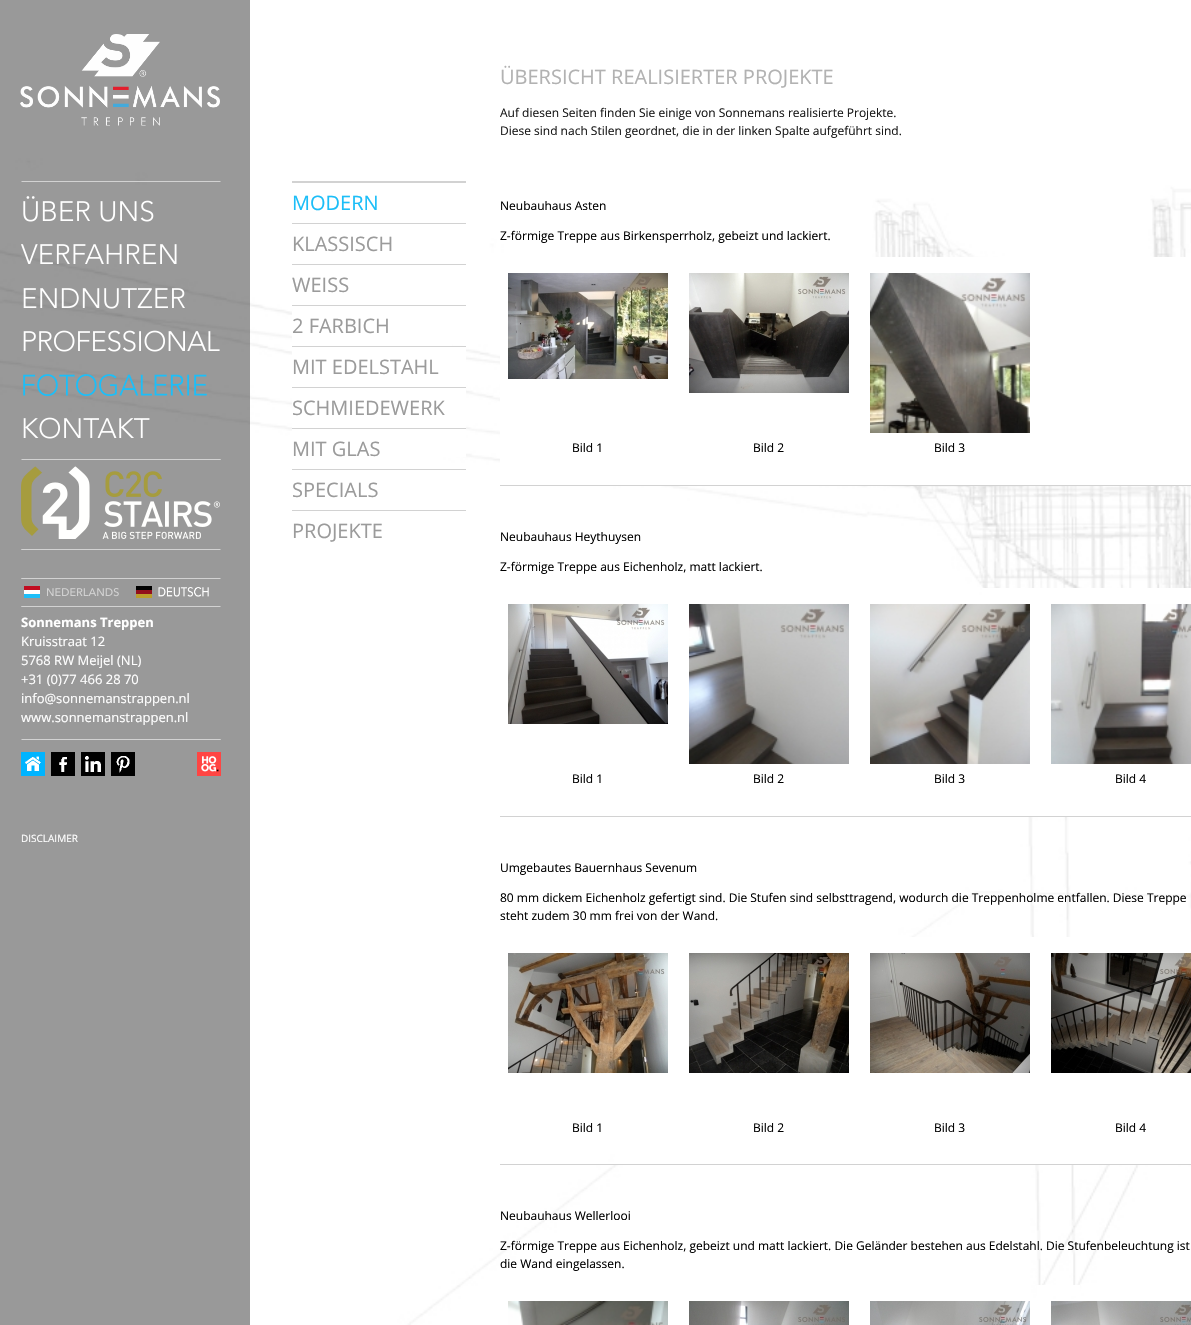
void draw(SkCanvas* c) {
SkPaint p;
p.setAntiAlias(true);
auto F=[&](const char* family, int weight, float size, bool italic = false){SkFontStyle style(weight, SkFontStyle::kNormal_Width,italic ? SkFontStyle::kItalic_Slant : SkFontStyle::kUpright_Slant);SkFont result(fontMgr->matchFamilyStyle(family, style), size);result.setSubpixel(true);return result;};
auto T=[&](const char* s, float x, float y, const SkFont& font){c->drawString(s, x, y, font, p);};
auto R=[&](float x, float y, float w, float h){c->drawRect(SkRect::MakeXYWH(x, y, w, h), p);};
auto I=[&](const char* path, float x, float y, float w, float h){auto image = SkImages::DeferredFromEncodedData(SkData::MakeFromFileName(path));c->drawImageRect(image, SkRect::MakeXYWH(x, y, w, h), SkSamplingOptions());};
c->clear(0xffffffff);
I("1.png",0,0,1191,1325);
p.setColor(0x66000000);
R(0,0,250,1325);
I("2.png",20,34,200,92);
auto f1 = F("Open Sans",400,20);
p.setColor(0xffb2b2b2);
T("ÜBERSICHT REALISIERTER PROJEKTE",500,84,f1);
auto f2 = F("Open Sans",400,12);
p.setColor(0xff1a1a1a);
T("Auf diesen Seiten finden Sie einige von Sonnemans realisierte Projekte.",500,117,f2);
T("Diese sind nach Stilen geordnet, die in der linken Spalte aufgeführt sind.",500,135,f2);
I("3.png",21,181,200,1);
I("4.png",23,196,131,26);
p.setColor(0xffd2d2d2);
R(292,181,174,2);
p.setColor(0xff1cbef8);
T("MODERN",292,210,f1);
p.setColor(0xffd2d2d2);
R(292,223,174,1);
p.setColor(0xff9b9b9b);
T("KLASSISCH",292,251,f1);
p.setColor(0xffd2d2d2);
R(292,264,174,1);
p.setColor(0xff9b9b9b);
T("WEISS",292,292,f1);
p.setColor(0xffffffff);
R(292,311,160,35);
p.setColor(0xffd2d2d2);
R(292,305,174,1);
p.setColor(0xff9b9b9b);
T("2 FARBICH",292,333,f1);
p.setColor(0xffffffff);
R(292,347,174,40);
p.setColor(0xffd2d2d2);
R(292,346,174,1);
p.setColor(0xff9b9b9b);
T("MIT EDELSTAHL",292,374,f1);
p.setColor(0xffffffff);
R(292,388,174,40);
p.setColor(0xffd2d2d2);
R(292,387,174,1);
p.setColor(0xff9b9b9b);
T("SCHMIEDEWERK",292,415,f1);
p.setColor(0xffffffff);
R(292,429,174,28);
p.setColor(0xffd2d2d2);
R(292,428,174,1);
p.setColor(0xff9b9b9b);
T("MIT GLAS",292,456,f1);
p.setColor(0xffd2d2d2);
R(292,469,174,1);
p.setColor(0xff9b9b9b);
T("SPECIALS",292,497,f1);
p.setColor(0xffd2d2d2);
R(292,510,174,1);
p.setColor(0xff9b9b9b);
T("PROJEKTE",292,538,f1);
p.setColor(0xff000000);
T("Neubauhaus Asten",500,210,f2);
T("Z-förmige Treppe aus Birkensperrholz, gebeizt und lackiert.",500,240,f2);
p.setColor(0xffffffff);
R(500,257,691,228);
p.setColor(0xffd2d2d2);
R(500,485,691,1);
I("5.png",508,273,160,106);
p.setColor(0xff000000);
T("Bild 1",572,452,f2);
I("6.png",689,273,160,120);
T("Bild 2",753,452,f2);
I("7.png",870,273,160,160);
T("Bild 3",934,452,f2);
T("Neubauhaus Heythuysen",500,541,f2);
T("Z-förmige Treppe aus Eichenholz, matt lackiert.",500,571,f2);
p.setColor(0xffffffff);
R(982,588,209,228);
p.setColor(0xffd2d2d2);
R(500,816,691,1);
I("8.png",508,604,160,120);
p.setColor(0xff000000);
T("Bild 1",572,783,f2);
I("9.png",689,604,160,160);
T("Bild 2",753,783,f2);
I("10.png",870,604,160,160);
T("Bild 3",934,783,f2);
I("11.png",1051,604,140,160);
T("Bild 4",1115,783,f2);
T("Umgebautes Bauernhaus Sevenum",500,872,f2);
T("80 mm dickem Eichenholz gefertigt sind. Die Stufen sind selbsttragend, wodurch die Treppenholme entfallen. Diese Treppe",500,902,f2);
T("steht zudem 30 mm frei von der Wand.",500,920,f2);
p.setColor(0xffffffff);
R(615,937,576,227);
p.setColor(0xffd2d2d2);
R(500,1164,691,1);
I("12.png",508,953,160,120);
p.setColor(0xff000000);
T("Bild 1",572,1132,f2);
I("13.png",689,953,160,120);
T("Bild 2",753,1132,f2);
I("14.png",870,953,160,120);
T("Bild 3",934,1132,f2);
I("15.png",1051,953,140,120);
T("Bild 4",1115,1132,f2);
T("Neubauhaus Wellerlooi",500,1220,f2);
T("Z-förmige Treppe aus Eichenholz, gebeizt und matt lackiert. Die Geländer bestehen aus Edelstahl. Die Stufenbeleuchtung ist",500,1250,f2);
T("die Wand eingelassen.",500,1268,f2);
p.setColor(0xffffffff);
R(1037,1285,43,11);
I("16.png",508,1301,160,24);
I("17.png",689,1301,160,24);
I("18.png",870,1301,160,24);
I("19.png",1051,1301,140,24);
I("20.png",21,244,156,20);
I("21.png",23,288,162,21);
I("22.png",23,330,197,22);
I("23.png",23,374,184,22);
I("24.png",23,417,127,22);
I("25.png",21,459,200,1);
I("26.png",21,466,199,73);
I("27.png",21,549,200,1);
I("27.png",21,578,200,1);
p.setColor(0xffc10c20);
R(24,586,16,4);
p.setColor(0xffffffff);
R(24,590,16,4);
p.setColor(0xff1cbef8);
R(24,594,16,4);
I("28.png",47,588,72,9);
p.setColor(0xff000000);
R(136,586,16,4);
p.setColor(0xff920f1c);
R(136,590,16,4);
p.setColor(0xffbb9e2d);
R(136,594,16,4);
I("29.png",158,587,51,10);
I("27.png",21,606,200,1);
auto f3 = F("Open Sans",700,13);
p.setColor(0xffffffff);
T("Sonnemans Treppen",21,627,f3);
auto f4 = F("Open Sans",400,13);
T("Kruisstraat 12",21,646,f4);
T("5768 RW Meijel (NL)",21,665,f4);
T("+31 (0)77 466 28 70",21,684,f4);
T("info@sonnemanstrappen.nl",21,703,f4);
T("www.sonnemanstrappen.nl",21,722,f4);
I("25.png",21,739,200,1);
I("30.png",21,752,24,24);
I("31.png",51,752,24,24);
I("32.png",81,752,24,24);
I("33.png",111,752,24,24);
I("34.png",197,752,24,24);
auto f5 = F("Open Sans",400,10);
T("DISCLAIMER",21,842,f5);
}
